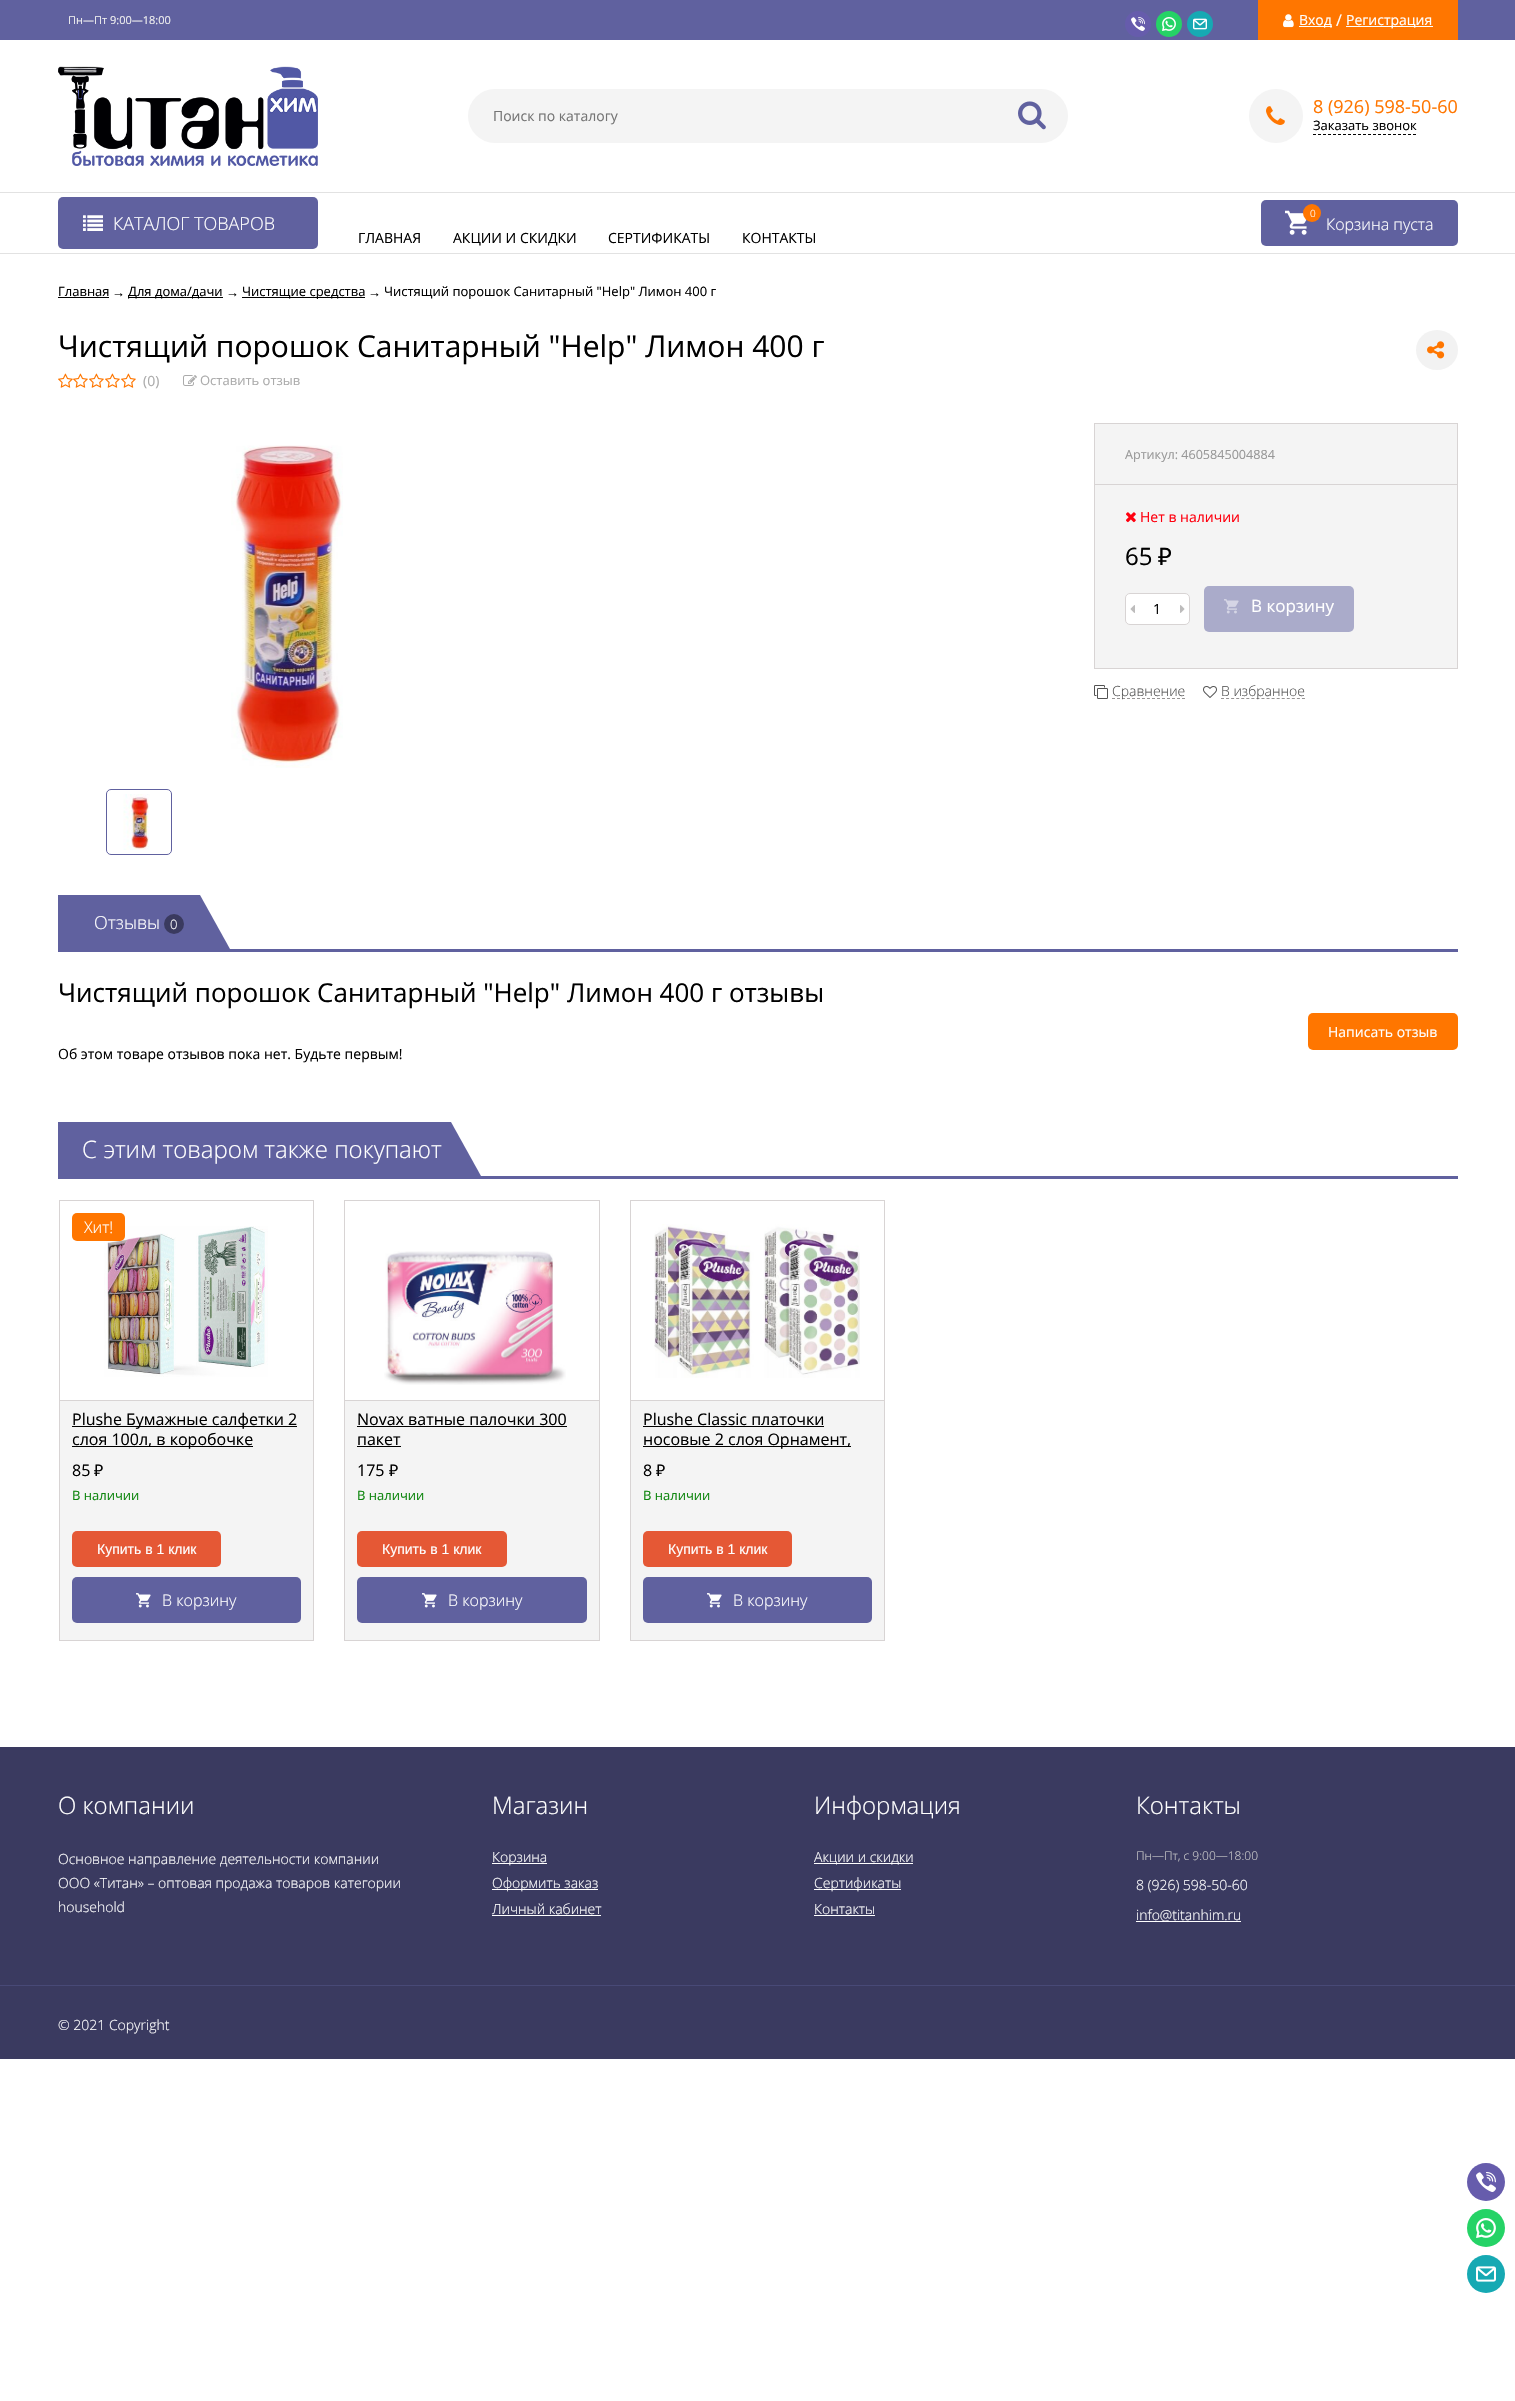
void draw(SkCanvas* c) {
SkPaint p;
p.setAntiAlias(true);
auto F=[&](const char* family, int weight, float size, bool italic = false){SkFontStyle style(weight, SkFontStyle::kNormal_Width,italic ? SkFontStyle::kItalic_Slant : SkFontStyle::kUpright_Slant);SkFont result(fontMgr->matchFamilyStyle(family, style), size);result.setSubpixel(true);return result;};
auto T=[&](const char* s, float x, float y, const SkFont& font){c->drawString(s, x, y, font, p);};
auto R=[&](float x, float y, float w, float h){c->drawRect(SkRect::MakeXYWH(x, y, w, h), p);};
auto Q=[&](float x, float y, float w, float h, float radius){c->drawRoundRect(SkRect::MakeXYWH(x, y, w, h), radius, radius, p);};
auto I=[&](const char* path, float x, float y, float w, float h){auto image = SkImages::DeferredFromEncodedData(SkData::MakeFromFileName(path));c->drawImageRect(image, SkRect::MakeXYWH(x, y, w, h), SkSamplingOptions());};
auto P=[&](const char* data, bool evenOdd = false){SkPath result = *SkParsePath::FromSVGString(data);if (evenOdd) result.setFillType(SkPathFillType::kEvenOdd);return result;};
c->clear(0xffffffff);
p.setColor(0xff60619f);
R(0,0,1515,40);
auto f1 = F("Open Sans",400,11);
p.setColor(0xffefefef);
T("Пн—Пт 9:00—18:00",68,24,f1);
p.setColor(0xff665cac);
c->drawCircle(1138,24,13,p);
I("1.png",1131,17,14,14);
p.setColor(0xff25d366);
c->drawCircle(1169,24,13,p);
I("2.png",1162,17,14,14);
p.setColor(0xff16a9b3);
c->drawCircle(1200,24,13,p);
I("3.png",1193,18,14,12);
p.setColor(0xffff7600);
R(1258,0,200,40);
I("4.png",1283,14,11,14);
p.setColor(0xffffffff);
R(1299,26,33,1);
auto f2 = F("Open Sans",400,14);
T("Вход",1299,25,f2);
auto f3 = F("Open Sans",400,16);
T("/",1336,26,f3);
R(1346,26,87,1);
T("Регистрация",1346,25,f2);
I("5.png",58,66,260,100);
p.setColor(0xfff4f4f4);
Q(468,89,600,54,27);
p.setColor(0xff757575);
T("Поиск по каталогу",493,121,f2);
I("6.png",1018,101,28,29);
p.setColor(0xfff4f4f4);
c->drawCircle(1276,116,27,p);
I("7.png",1266,106,19,19);
auto f4 = F("Open Sans",400,18);
p.setColor(0xffff7600);
T("8 (926) 598-50-60",1313,113,f4);
p.setStroke(true);
p.setStrokeWidth(1);
p.setColor(0xff010101);
p.setPathEffect(SkDashPathEffect::Make({{3,2}}, 0));
c->drawPath(P("M1313 134.5h103"),p);
p.setPathEffect(nullptr);
auto f5 = F("Open Sans",400,13);
p.setStroke(false);
p.setColor(0xff000000);
T("Заказать звонок",1313,130,f5);
p.setColor(0xffe2e2e2);
R(0,192,1515,1);
R(0,253,1515,1);
p.setColor(0xff60619f);
Q(58,197,260,52,5);
I("8.png",83,215,20,16);
auto f6 = F("Open Sans",300,18);
p.setColor(0xffffffff);
T("КАТАЛОГ ТОВАРОВ",113,230,f6);
p.setColor(0xff60619f);
Q(1261,200,197,46,5);
I("9.png",1285,210,22,25);
p.setColor(0xffff7600);
c->drawCircle(1312,213,9,p);
auto f7 = F("Open Sans",300,10);
p.setColor(0xffffffff);
T("0",1310,217,f7);
auto f8 = F("Open Sans",300,16);
T("Корзина пуста",1326,230,f8);
p.setColor(0xff000000);
T("ГЛАВНАЯ",358,243,f2);
T("АКЦИИ И СКИДКИ",453,243,f2);
T("СЕРТИФИКАТЫ",608,243,f2);
T("КОНТАКТЫ",742,243,f2);
T("Главная",58,296,f5);
R(58,297,51,1);
auto f9 = F("Liberation Sans",400,13);
T("→",112,297,f9);
R(128,297,95,1);
T("Для дома/дачи",128,296,f5);
T("→",226,297,f9);
R(242,297,123,1);
T("Чистящие средства",242,296,f5);
T("→",368,297,f9);
T("Чистящий порошок Санитарный \"Help\" Лимон 400 г",384,296,f5);
auto f10 = F("Open Sans",400,30);
T("Чистящий порошок Санитарный \"Help\" Лимон 400 г",58,357,f10);
p.setColor(0xfff2f2f2);
c->drawOval(SkRect::MakeXYWH(1416,330,42,40),p);
I("10.png",1427,341,18,18);
I("11.png",58,373,15,15);
I("11.png",73,373,15,15);
I("11.png",89,373,15,15);
I("11.png",105,373,15,15);
I("11.png",121,373,15,15);
p.setColor(0xffababab);
T("(0)",143,386,f2);
I("12.png",183,375,14,11);
T("Оставить отзыв",200,385,f5);
I("13.png",231,445,112,323);
p.setStroke(true);
p.setColor(0xff60619f);
c->drawRoundRect(SkRect::MakeXYWH(106.5,789.5,65,65),4.5,4.5,p);
I("14.png",123,794,27,56);
p.setStroke(false);
p.setColor(0xfff4f4f4);
c->drawRect(SkRect::MakeXYWH(1094.5,423.5,363,245),p);
p.setStroke(true);
p.setColor(0xffd8d4d4);
c->drawRect(SkRect::MakeXYWH(1094.5,423.5,363,245),p);
p.setStroke(false);
R(1095,484,362,1);
auto f11 = F("Open Sans",400,12.6);
p.setColor(0xff989898);
T("Артикул: 4605845004884",1125,459,f11);
I("15.png",1126,512,10,11);
p.setColor(0xffff000f);
T("Нет в наличии",1140,522,f2);
auto f12 = F("Open Sans",400,24);
p.setColor(0xff000000);
T("65",1125,565,f12);
auto f13 = F("Noto Sans",400,24);
T("₽",1158,565,f13);
p.setColor(0xffffffff);
c->drawRoundRect(SkRect::MakeXYWH(1125.5,593.5,64,31),4.5,4.5,p);
p.setStroke(true);
p.setColor(0xffd8d4d4);
c->drawRoundRect(SkRect::MakeXYWH(1125.5,593.5,64,31),4.5,4.5,p);
I("16.png",1130,605,5,8);
p.setStroke(false);
p.setColor(0xff000000);
T("1",1153,614,f2);
I("17.png",1180,605,5,8);
p.setColor(0xffaaabca);
Q(1204,586,150,46,5);
I("18.png",1224,599,15,15);
auto f14 = F("Open Sans",400,17);
p.setColor(0xffffffff);
T("В корзину",1251,612,f14);
I("19.png",1094,685,14,14);
p.setStroke(true);
p.setColor(0xff979494);
p.setPathEffect(SkDashPathEffect::Make({{3,2}}, 0));
c->drawPath(P("M1112 698.5h73"),p);
p.setPathEffect(nullptr);
auto f15 = F("Open Sans",300,14);
p.setStroke(false);
p.setColor(0xff525252);
T("Сравнение",1112,696,f15);
I("20.png",1203,686,14,12);
p.setStroke(true);
p.setColor(0xff979494);
p.setPathEffect(SkDashPathEffect::Make({{3,2.06f}}, 0));
c->drawPath(P("M1221 698.5h84"),p);
p.setPathEffect(nullptr);
p.setStroke(false);
p.setColor(0xff525252);
T("В избранное",1221,696,f15);
p.setColor(0xff60619f);
R(58,949,1400,3);
c->drawPath(P("M230 949h-172v-54h142z"),p);
p.setColor(0xffffffff);
T("Отзывы",94,929,f6);
p.setColor(0xff3a3a5f);
c->drawCircle(174,924,10,p);
auto f16 = F("Open Sans",300,13);
p.setColor(0xffffffff);
T("0",170,929,f16);
auto f17 = F("Open Sans",400,26);
p.setColor(0xff000000);
T("Чистящий порошок Санитарный \"Help\" Лимон 400 г отзывы",58,1002,f17);
p.setColor(0xffff7600);
Q(1308,1013,150,37,5);
p.setColor(0xffffffff);
T("Написать отзыв",1328,1037,f2);
p.setColor(0xff000000);
T("Об этом товаре отзывов пока нет. Будьте первым!",58,1059,f2);
p.setColor(0xff60619f);
R(58,1176,1400,3);
c->drawPath(P("M481 1176h-423v-54h393z"),p);
auto f18 = F("Open Sans",300,24);
p.setColor(0xffffffff);
T("С этим товаром также покупают",82,1158,f18);
p.setStroke(true);
p.setColor(0xffd8d4d4);
c->drawRect(SkRect::MakeXYWH(59.5,1200.5,254,440),p);
p.setStroke(false);
R(60,1400,253,1);
I("21.png",104,1226,164,151);
p.setColor(0xffff7600);
Q(72,1213,53,28,5);
p.setColor(0xffffffff);
T("Хит!",84,1233,f8);
p.setColor(0xfff4f4f4);
R(60,1401,253,239);
p.setColor(0xff000000);
R(72,1426,225,1);
T("Plushe Бумажные салфетки 2",72,1425,f3);
R(72,1446,181,1);
T("слоя 100л, в коробочке",72,1445,f3);
T("85",72,1476,f3);
auto f19 = F("Noto Sans",400,16);
T("₽",94,1476,f19);
p.setColor(0xff0e860e);
T("В наличии",72,1500,f5);
p.setColor(0xffe55835);
Q(72,1531,149,36,5);
auto f20 = F("Liberation Sans",400,14);
p.setColor(0xffffffff);
T("Купить в 1 клик",97,1554,f20);
p.setColor(0xff60619f);
Q(72,1577,229,46,5);
I("22.png",136,1593,15,15);
p.setColor(0xffffffff);
T("В корзину",162,1606,f8);
p.setStroke(true);
p.setColor(0xffd8d4d4);
c->drawRect(SkRect::MakeXYWH(344.5,1200.5,255,440),p);
p.setStroke(false);
R(345,1400,254,1);
I("23.png",384,1251,182,134);
p.setColor(0xfff4f4f4);
R(345,1401,254,239);
p.setColor(0xff000000);
T("Novax ватные палочки 300",357,1425,f3);
R(357,1426,210,1);
T("пакет",357,1445,f3);
R(357,1446,44,1);
T("175",357,1476,f3);
T("₽",389,1476,f19);
p.setColor(0xff0e860e);
T("В наличии",357,1500,f5);
p.setColor(0xffe55835);
Q(357,1531,150,36,5);
p.setColor(0xffffffff);
T("Купить в 1 клик",382,1554,f20);
p.setColor(0xff60619f);
Q(357,1577,230,46,5);
I("22.png",422,1593,15,15);
p.setColor(0xffffffff);
T("В корзину",448,1606,f8);
p.setStroke(true);
p.setColor(0xffd8d4d4);
c->drawRect(SkRect::MakeXYWH(630.5,1200.5,254,440),p);
p.setStroke(false);
R(631,1400,253,1);
I("24.png",654,1224,206,154);
p.setColor(0xfff4f4f4);
R(631,1401,253,239);
p.setColor(0xff000000);
T("Plushe Classic платочки",643,1425,f3);
R(643,1426,181,1);
R(643,1446,208,1);
T("носовые 2 слоя Орнамент,",643,1445,f3);
T("8",643,1476,f3);
T("₽",656,1476,f19);
p.setColor(0xff0e860e);
T("В наличии",643,1500,f5);
p.setColor(0xffe55835);
Q(643,1531,149,36,5);
p.setColor(0xffffffff);
T("Купить в 1 клик",668,1554,f20);
p.setColor(0xff60619f);
Q(643,1577,229,46,5);
I("22.png",707,1593,15,15);
p.setColor(0xffffffff);
T("В корзину",733,1606,f8);
p.setColor(0xff3a3a60);
R(0,1747,1515,312);
p.setColor(0xffffffff);
T("О компании",58,1814,f18);
T("Основное направление деятельности компании",58,1864,f15);
T("ООО «Титан» – оптовая продажа товаров категории",58,1888,f15);
T("household",58,1912,f15);
T("Магазин",492,1814,f18);
R(492,1863,55,1);
T("Корзина",492,1862,f15);
R(492,1889,106,1);
T("Оформить заказ",492,1888,f15);
T("Личный кабинет",492,1914,f15);
R(492,1915,109,1);
T("Информация",814,1814,f18);
R(814,1863,99,1);
T("Акции и скидки",814,1862,f15);
R(814,1889,87,1);
T("Сертификаты",814,1888,f15);
T("Контакты",814,1914,f15);
R(814,1915,61,1);
T("Контакты",1136,1814,f18);
auto f21 = F("Open Sans",300,12);
p.setColor(0xffcdcdcd);
T("Пн—Пт, с 9:00—18:00",1136,1860,f21);
p.setColor(0xffffffff);
T("8 (926) 598-50-60",1136,1890,f15);
R(1136,1921,105,1);
T("info@titanhim.ru",1136,1920,f15);
p.setColor(0xff484977);
R(0,1985,1515,1);
p.setColor(0xffffffff);
T("© 2021 Copyright",58,2030,f15);
p.setColor(0xff665cac);
c->drawCircle(1486,2182,19,p);
I("25.png",1476,2172,20,20);
p.setColor(0xff25d366);
c->drawCircle(1486,2228,19,p);
I("26.png",1476,2218,20,20);
p.setColor(0xff16a9b3);
c->drawCircle(1486,2274,19,p);
I("27.png",1476,2266,20,16);
}
